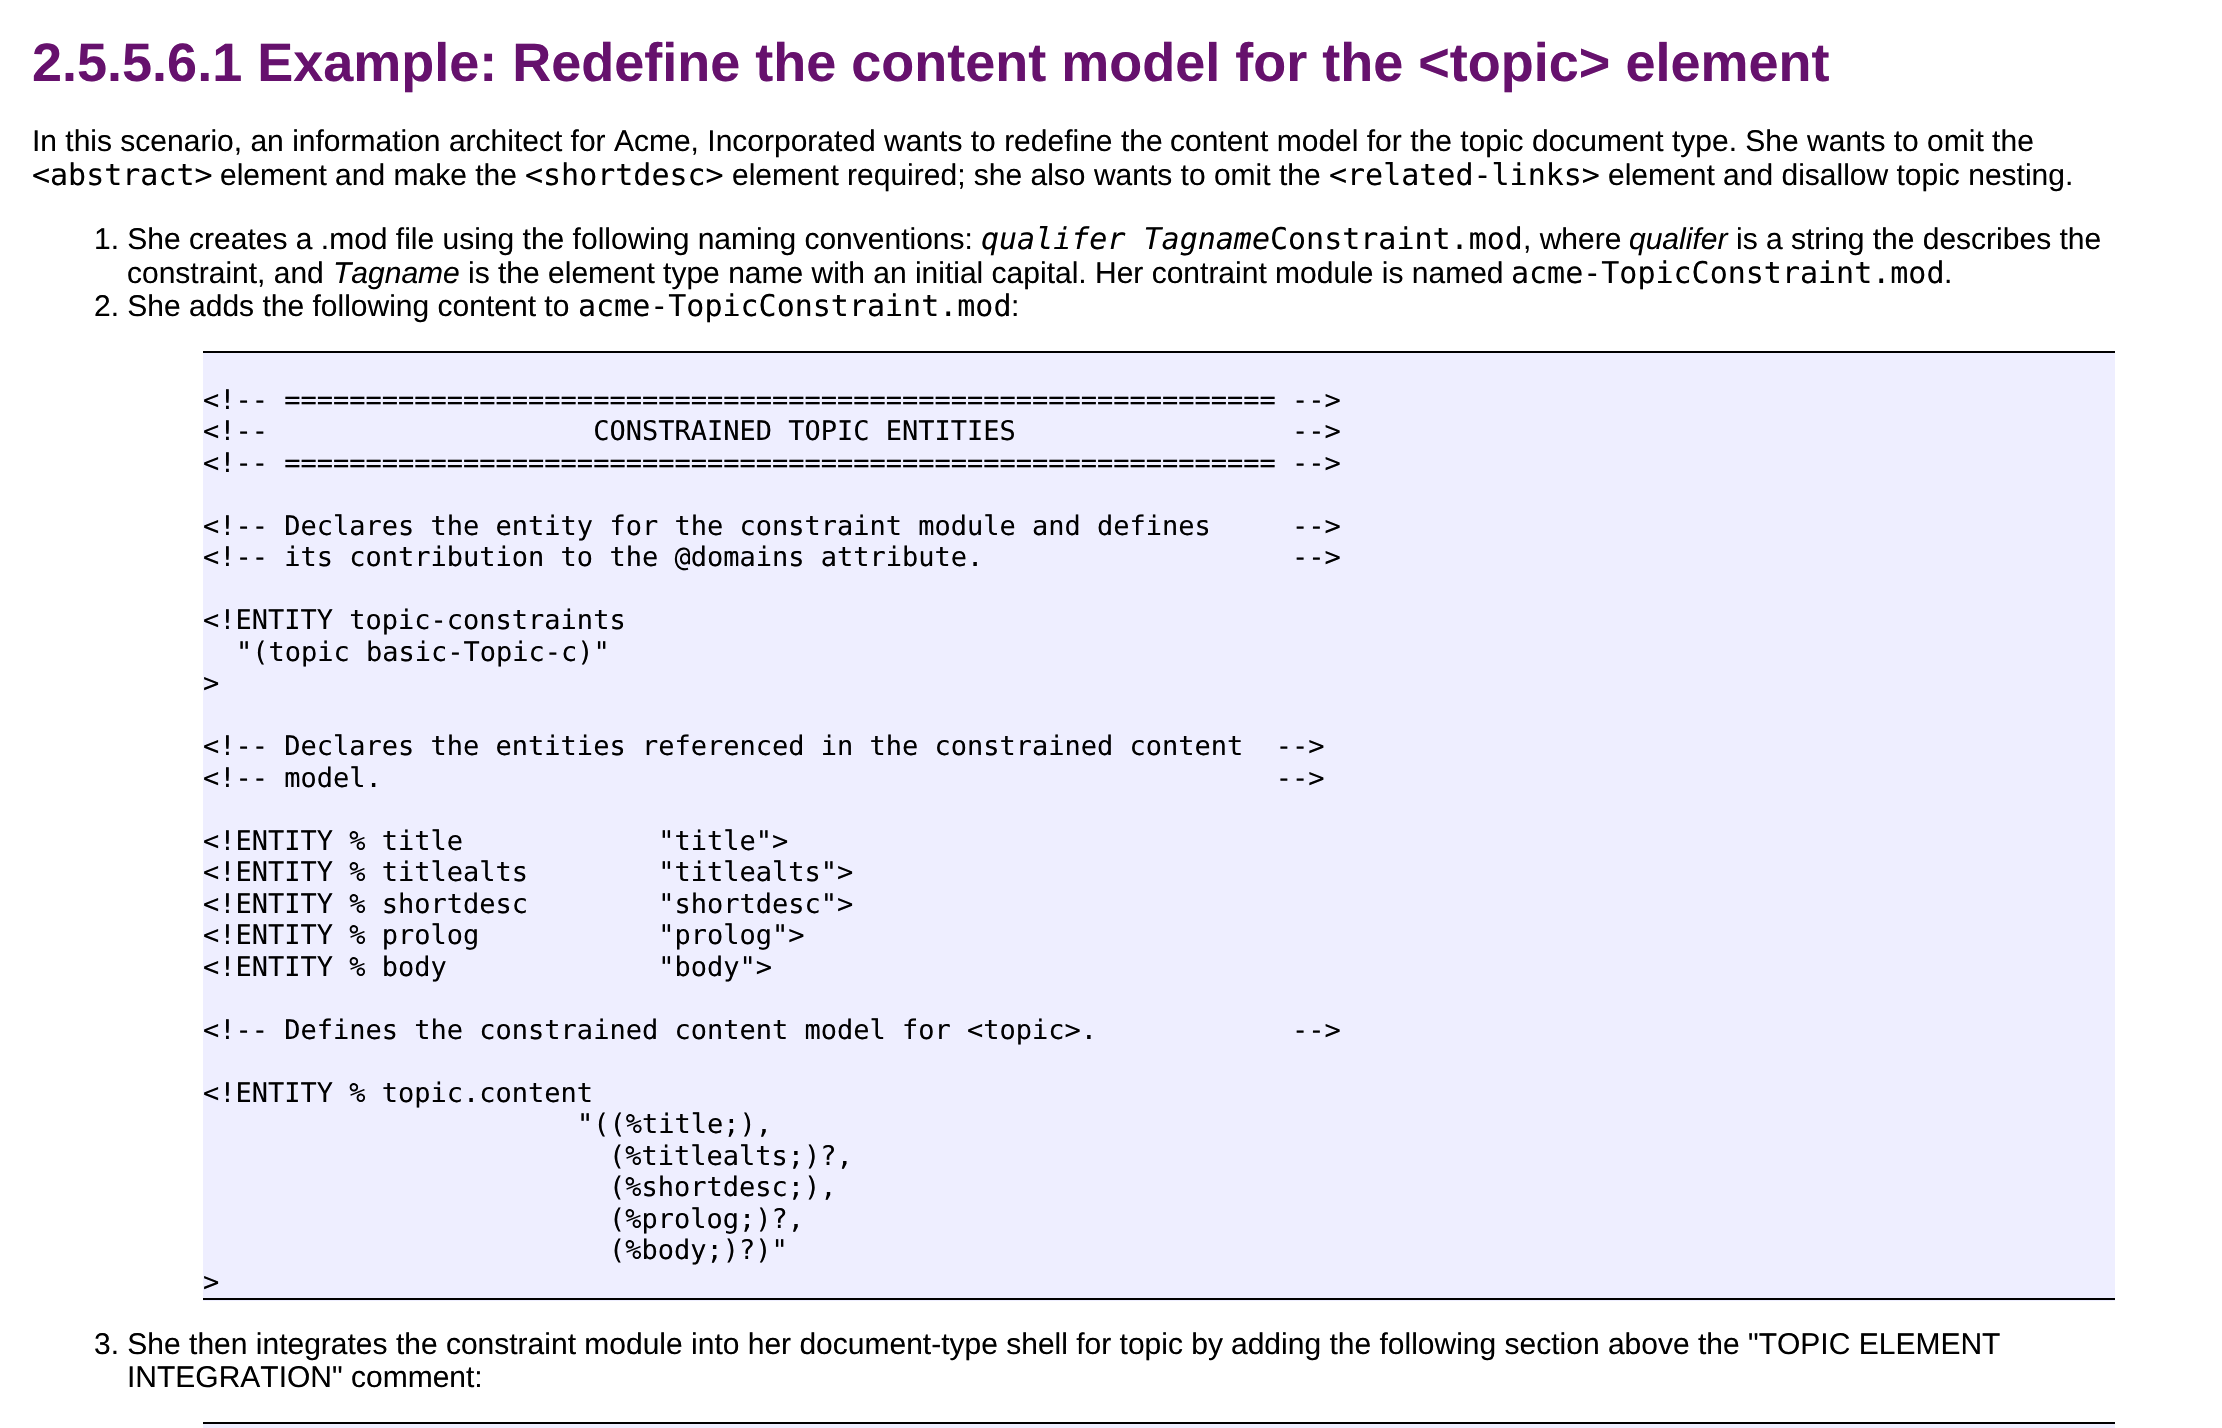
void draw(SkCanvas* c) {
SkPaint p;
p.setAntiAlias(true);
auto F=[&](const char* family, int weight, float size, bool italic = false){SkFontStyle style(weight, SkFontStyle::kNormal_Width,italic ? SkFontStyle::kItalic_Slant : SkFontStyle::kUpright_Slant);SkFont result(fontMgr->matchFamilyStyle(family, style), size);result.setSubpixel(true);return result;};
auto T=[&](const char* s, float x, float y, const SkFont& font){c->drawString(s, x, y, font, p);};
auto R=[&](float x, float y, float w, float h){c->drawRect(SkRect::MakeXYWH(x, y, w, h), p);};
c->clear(0xffffffff);
auto f1 = F("Liberation Sans",700,54);
p.setColor(0xff66116d);
T("2.5.5.6.1 Example: Redefine the content model for the <topic> element",32,81,f1);
auto f2 = F("Liberation Sans",400,30);
p.setColor(0xff000000);
T("In this scenario, an information architect for Acme, Incorporated wants to redefine the",32,151,f2);
T("content model for the topic document type. She wants to omit the",1170,151,f2);
auto f3 = F("DejaVu Sans Mono",400,30);
T("<abstract>",32,185,f3);
T("element and make the",220,185,f2);
T("<shortdesc>",525,185,f3);
T("element required; she also wants to omit the",732,185,f2);
T("<related-links>",1329,185,f3);
T("element and disallow topic nesting.",1608,185,f2);
T("1. She creates a .mod file using the following naming conventions:",94,249,f2);
auto f4 = F("DejaVu Sans Mono",400,30,true);
T("qualifer Tagname",981,249,f4);
T("Constraint.mod",1270,249,f3);
T(", where",1523,249,f2);
auto f5 = F("Liberation Sans",400,30,true);
T("qualifer",1629,249,f5);
T("is a string the describes the",1736,249,f2);
T("constraint, and",127,283,f2);
T("Tagname",333,283,f5);
T("is the element type name with an initial capital. Her contraint module is named",468,283,f2);
T("acme-TopicConstraint.mod",1511,283,f3);
T(".",1944,283,f2);
T("2. She adds the following content to",94,316,f2);
T("acme-TopicConstraint.mod",578,316,f3);
T(":",1011,316,f2);
p.setColor(0xffeeeeff);
R(203,353,1912,948);
p.setColor(0xff000000);
R(203,351,1912,2);
R(203,1298,1912,2);
auto f6 = F("DejaVu Sans Mono",400,27);
T("<!-- ============================================================= -->",203,409,f6);
T("<!--                    CONSTRAINED TOPIC ENTITIES                 -->",203,440,f6);
T("<!-- ============================================================= -->",203,472,f6);
T("<!-- Declares the entity for the constraint module and defines     -->",203,535,f6);
T("<!-- its contribution to the @domains attribute.                   -->",203,566,f6);
T("<!ENTITY topic-constraints",203,629,f6);
T("\"(topic basic-Topic-c)\"",236,661,f6);
T(">",203,692,f6);
T("<!-- Declares the entities referenced in the constrained content  -->",203,755,f6);
T("<!-- model.                                                       -->",203,787,f6);
T("<!ENTITY % title            \"title\">",203,850,f6);
T("<!ENTITY % titlealts        \"titlealts\">",203,881,f6);
T("<!ENTITY % shortdesc        \"shortdesc\">",203,913,f6);
T("<!ENTITY % prolog           \"prolog\">",203,944,f6);
T("<!ENTITY % body             \"body\">",203,976,f6);
T("<!-- Defines the constrained content model for <topic>.            -->",203,1039,f6);
T("<!ENTITY % topic.content",203,1102,f6);
T("\"((%title;),",577,1133,f6);
T("(%titlealts;)?,",609,1165,f6);
T("(%shortdesc;),",609,1196,f6);
T("(%prolog;)?,",609,1228,f6);
T("(%body;)?)\"",609,1259,f6);
T(">",203,1291,f6);
T("3. She then integrates the constraint module into her document-type shell for topic by",94,1354,f2);
T("adding the following section above the \"TOPIC ELEMENT",1231,1354,f2);
T("INTEGRATION\" comment:",127,1387,f2);
p.setColor(0xffeeeeff);
R(203,1424,1912,4);
p.setColor(0xff000000);
R(203,1422,1912,2);
}
